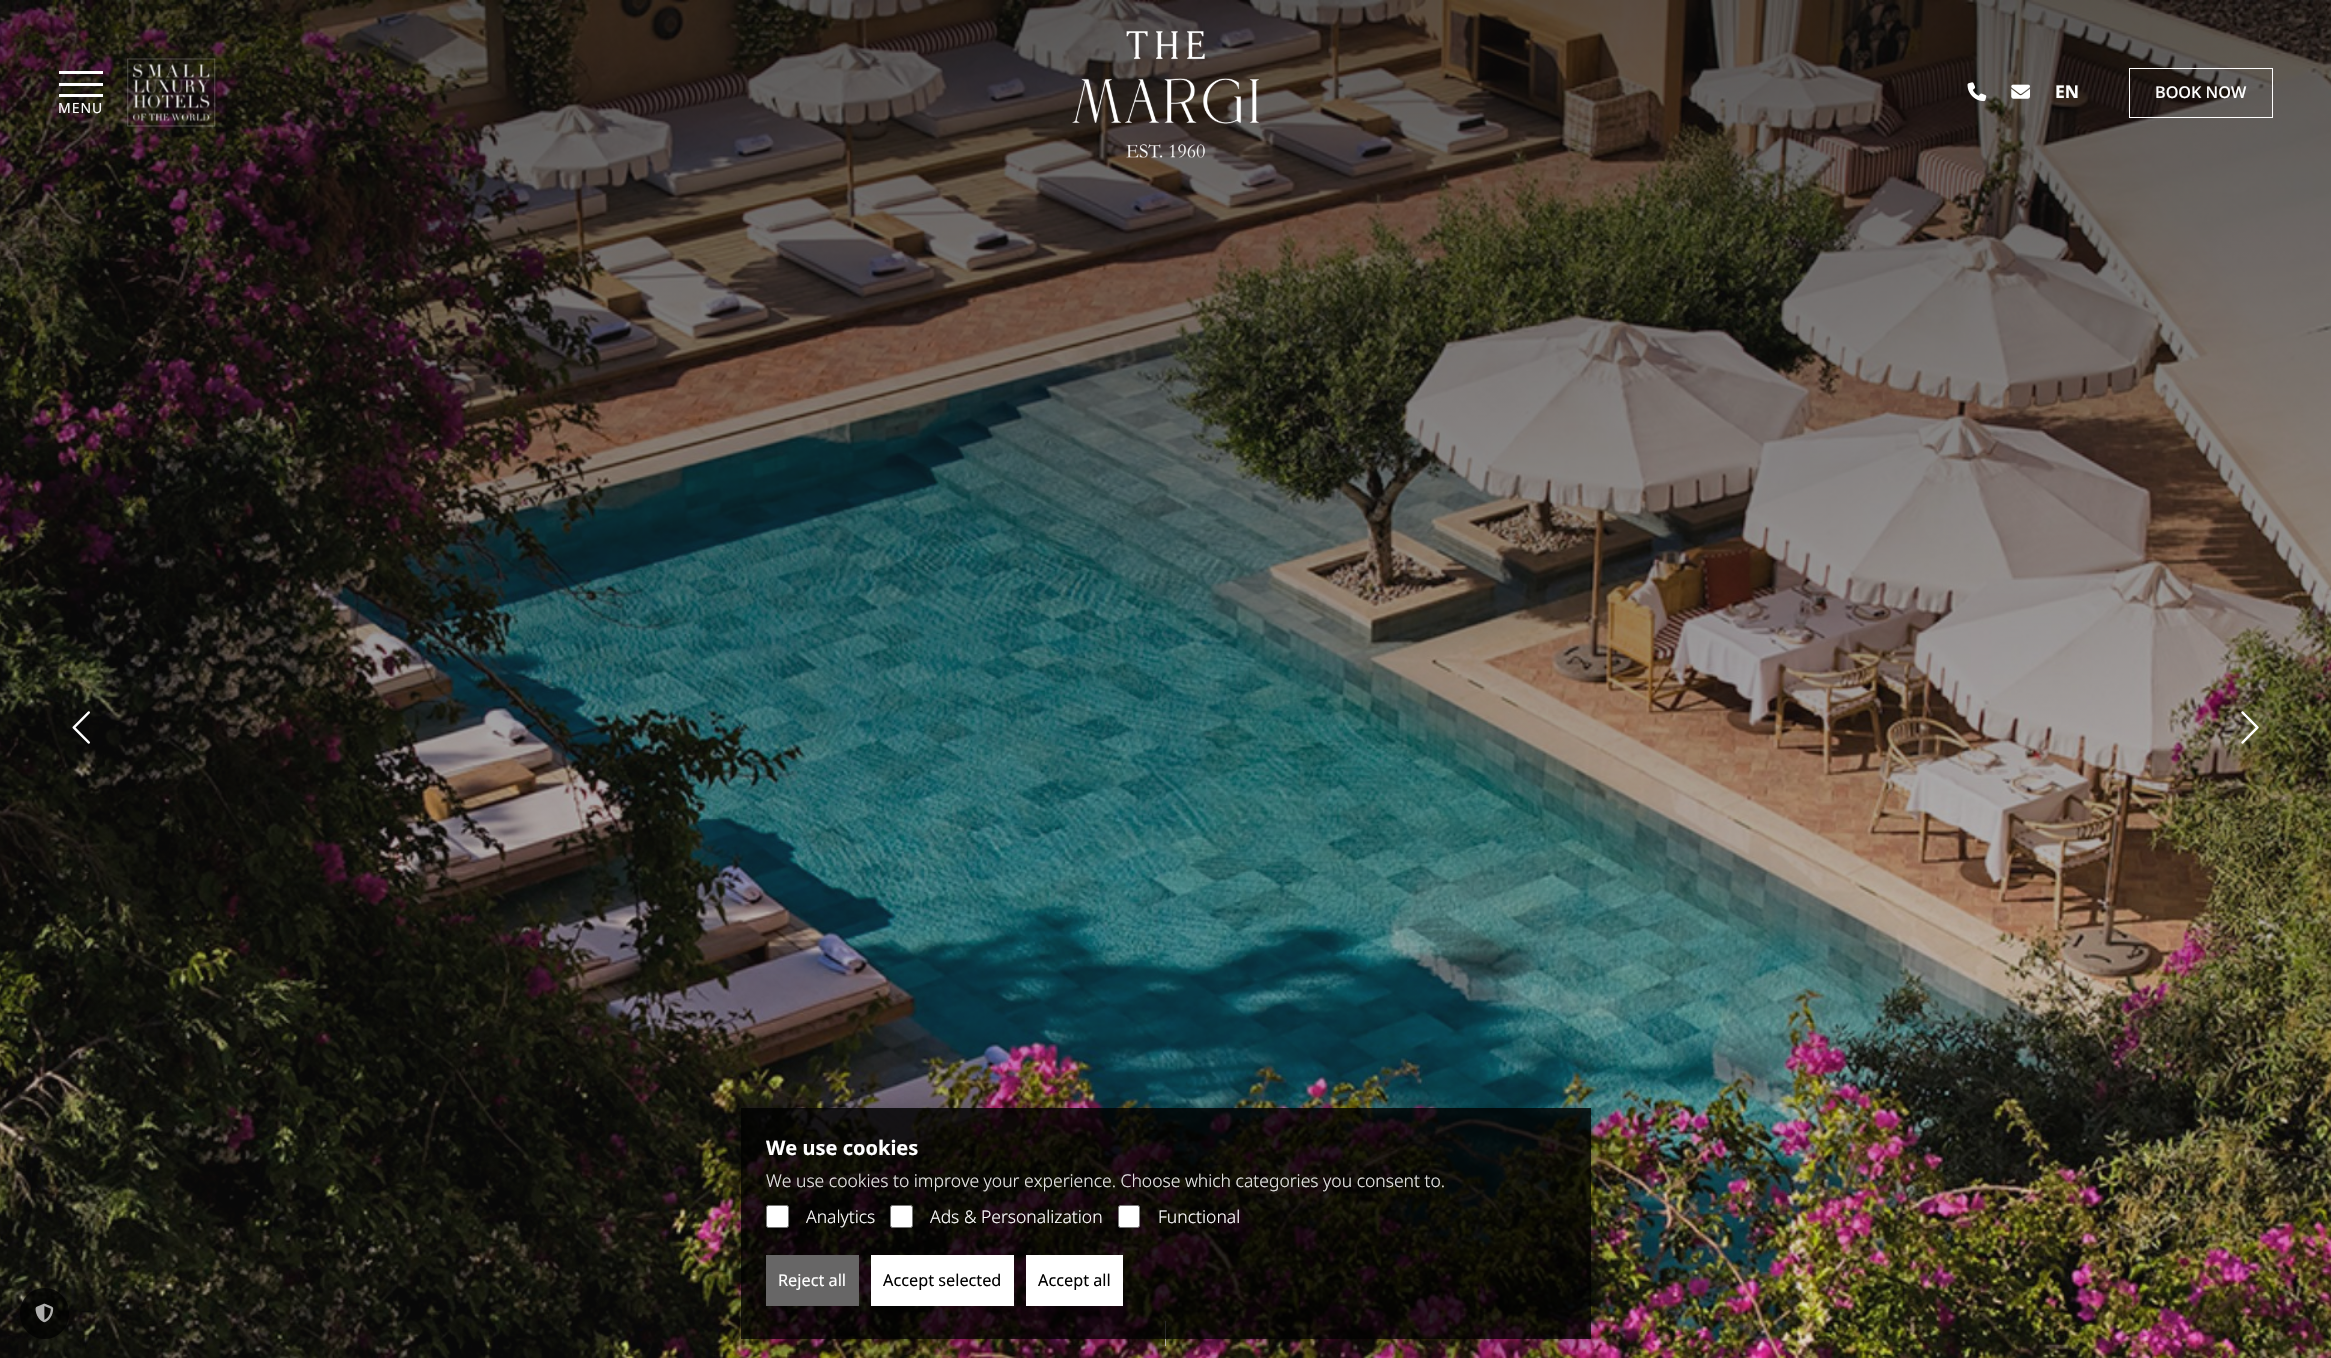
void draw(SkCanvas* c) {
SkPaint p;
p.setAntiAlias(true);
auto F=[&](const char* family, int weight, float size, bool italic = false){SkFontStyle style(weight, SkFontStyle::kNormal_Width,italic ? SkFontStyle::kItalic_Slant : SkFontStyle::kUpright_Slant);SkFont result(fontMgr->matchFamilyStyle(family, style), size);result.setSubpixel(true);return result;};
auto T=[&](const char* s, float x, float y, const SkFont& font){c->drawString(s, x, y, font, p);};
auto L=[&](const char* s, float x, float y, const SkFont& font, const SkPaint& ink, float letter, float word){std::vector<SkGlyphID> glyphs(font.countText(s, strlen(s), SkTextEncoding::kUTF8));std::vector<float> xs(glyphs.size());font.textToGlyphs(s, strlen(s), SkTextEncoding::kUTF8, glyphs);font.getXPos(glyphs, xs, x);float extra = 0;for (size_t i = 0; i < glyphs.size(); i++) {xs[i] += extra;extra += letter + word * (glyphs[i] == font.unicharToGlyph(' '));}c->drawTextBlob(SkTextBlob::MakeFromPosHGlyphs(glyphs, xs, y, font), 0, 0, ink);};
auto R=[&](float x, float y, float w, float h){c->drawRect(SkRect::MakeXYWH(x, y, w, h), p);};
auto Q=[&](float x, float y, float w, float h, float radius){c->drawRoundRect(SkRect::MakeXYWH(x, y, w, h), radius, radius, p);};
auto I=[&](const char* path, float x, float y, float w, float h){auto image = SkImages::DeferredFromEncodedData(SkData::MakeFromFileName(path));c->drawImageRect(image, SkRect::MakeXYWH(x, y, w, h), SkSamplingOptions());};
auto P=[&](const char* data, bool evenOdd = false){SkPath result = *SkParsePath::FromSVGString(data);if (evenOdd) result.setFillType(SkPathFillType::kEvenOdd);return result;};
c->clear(0xffffffff);
I("1.png",0,0,2331,1358);
I("2.png",72,711,18,33);
I("3.png",2241,711,18,33);
p.setColor(0xffffffff);
R(1165,1321,1,25);
I("4.png",127,58,89,69);
I("5.png",1072,31,187,127);
I("6.png",1967,82,20,20);
I("7.png",2011,84,19,15);
auto f1 = F("Noto Sans",700,17.5);
T("EN",2055,98,f1);
p.setStroke(true);
p.setStrokeWidth(1);
c->drawRect(SkRect::MakeXYWH(2129.5,68.5,143,49),p);
auto f2 = F("Noto Sans",500,16.25);
p.setStroke(false);
T("BOOK NOW",2155,98,f2);
R(59,71,44,3);
R(59,83,44,3);
R(59,94,44,3);
auto f3 = F("Noto Sans",400,14);
L("MENU",58,113,f3,p,1,0);
c->save();
c->clipPath(P("M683 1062h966v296h-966zm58 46h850v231h-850z",true),true);
p.setColor(0x73000000);
p.setMaskFilter(SkMaskFilter::MakeBlur(kNormal_SkBlurStyle, 19));
c->drawRect(SkRect::MakeXYWH(741,1120,850,231),p);
p.setMaskFilter(nullptr);
c->restore();
p.setColor(0xd4000000);
R(741,1108,850,231);
auto f4 = F("Noto Sans",700,20);
p.setColor(0xffffffff);
T("We use cookies",766,1155,f4);
auto f5 = F("Noto Sans",300,17.5);
p.setColor(0xffe7e7e6);
T("We use cookies to improve your experience. Choose which categories you consent to.",766,1187,f5);
p.setColor(0xffffffff);
c->drawRoundRect(SkRect::MakeXYWH(766.5,1205.5,22,22),2,2,p);
p.setStroke(true);
p.setColor(0xff767676);
c->drawRoundRect(SkRect::MakeXYWH(766.5,1205.5,22,22),2,2,p);
p.setStroke(false);
p.setColor(0xffffffff);
T("Analytics",806,1223,f5);
c->drawRoundRect(SkRect::MakeXYWH(890.5,1205.5,22,22),2,2,p);
p.setStroke(true);
p.setColor(0xff767676);
c->drawRoundRect(SkRect::MakeXYWH(890.5,1205.5,22,22),2,2,p);
p.setStroke(false);
p.setColor(0xffffffff);
T("Ads & Personalization",930,1223,f5);
c->drawRoundRect(SkRect::MakeXYWH(1118.5,1205.5,21,22),2,2,p);
p.setStroke(true);
p.setColor(0xff767676);
c->drawRoundRect(SkRect::MakeXYWH(1118.5,1205.5,21,22),2,2,p);
p.setStroke(false);
p.setColor(0xffffffff);
T("Functional",1158,1223,f5);
p.setColor(0xff676666);
R(766,1255,93,51);
auto f6 = F("Noto Sans",400,16.25);
p.setColor(0xffffffff);
T("Reject all",778,1286,f6);
R(871,1255,143,51);
p.setColor(0xff000000);
T("Accept selected",883,1286,f6);
p.setColor(0xffffffff);
R(1026,1255,97,51);
p.setColor(0xff000000);
T("Accept all",1038,1286,f6);
p.setColor(0xbf000000);
Q(20,1288,49,51,24.5);
I("8.png",35,1303,19,20);
}
